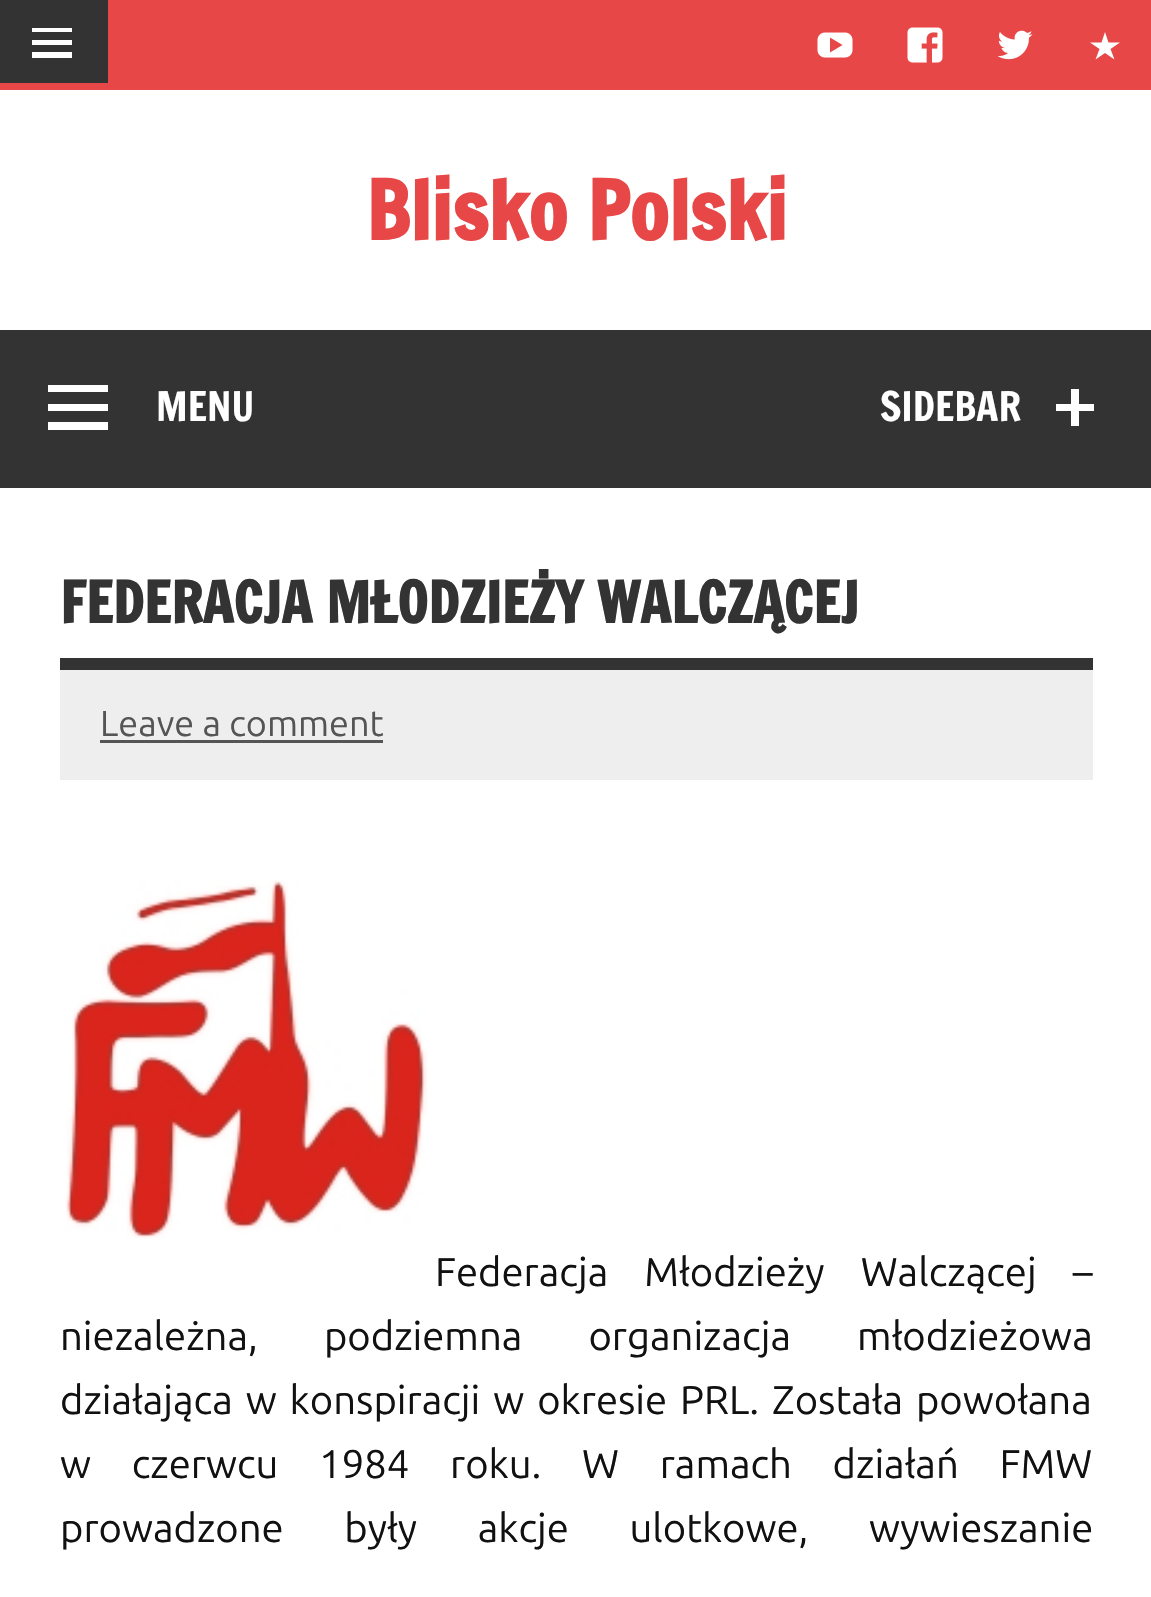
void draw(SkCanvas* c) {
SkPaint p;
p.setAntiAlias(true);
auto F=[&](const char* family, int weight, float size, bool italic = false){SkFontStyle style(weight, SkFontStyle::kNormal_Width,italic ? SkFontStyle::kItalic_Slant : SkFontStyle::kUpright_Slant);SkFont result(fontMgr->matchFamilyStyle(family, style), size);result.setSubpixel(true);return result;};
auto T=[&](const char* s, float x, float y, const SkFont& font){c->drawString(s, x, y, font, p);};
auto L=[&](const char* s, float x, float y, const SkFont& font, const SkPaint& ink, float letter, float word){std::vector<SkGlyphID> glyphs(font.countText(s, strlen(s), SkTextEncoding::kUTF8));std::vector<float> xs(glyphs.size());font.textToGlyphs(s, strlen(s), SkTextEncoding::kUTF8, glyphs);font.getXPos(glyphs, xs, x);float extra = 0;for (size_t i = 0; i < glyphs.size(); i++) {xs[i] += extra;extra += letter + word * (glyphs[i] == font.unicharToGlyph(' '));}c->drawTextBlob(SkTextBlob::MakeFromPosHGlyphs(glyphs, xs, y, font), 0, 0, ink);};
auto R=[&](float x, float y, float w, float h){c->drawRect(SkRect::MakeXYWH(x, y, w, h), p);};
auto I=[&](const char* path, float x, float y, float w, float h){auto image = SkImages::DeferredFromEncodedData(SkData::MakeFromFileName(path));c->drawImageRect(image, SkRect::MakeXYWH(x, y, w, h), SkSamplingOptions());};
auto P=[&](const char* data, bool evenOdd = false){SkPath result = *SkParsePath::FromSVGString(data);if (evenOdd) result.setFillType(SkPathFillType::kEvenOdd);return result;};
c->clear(0xffffffff);
p.setColor(0xffe84747);
R(0,0,1151,90);
p.setColor(0xff333333);
R(0,0,108,83);
p.setColor(0xffffffff);
c->drawPath(P("M32 58v-6h40v6zm0-30h40v4h-40zm0 17v-5h40v5z"),p);
I("1.png",817,32,36,26);
I("2.png",907,27,36,36);
I("3.png",997,30,36,30);
c->drawPath(P("M1120 42.5l-9.5 6.5l4 10.5l-9.5-6.5l-9.5 6.5l4-10.5l-9.5-6.5h11.5l3.5-10.5l3.5 10.5z"),p);
auto f1 = F("Francois One",700,80);
p.setColor(0xffe84747);
T("Blisko Polski",366,240,f1);
p.setColor(0xff333333);
R(0,330,1151,158);
p.setColor(0xffffffff);
c->drawPath(P("M48 430v-8h60v8zm0-45h60v7h-60zm0 26v-7h60v7z"),p);
auto f2 = F("Francois One",400,40);
T("MENU",156,421,f2);
T("SIDEBAR",880,421,f2);
c->drawPath(P("M1094 404v7h-15v15h-8v-15h-15v-7h15v-15h8v15z"),p);
p.setColor(0xff333333);
R(60,658,1033,12);
auto f3 = F("Francois One",700,56);
T("FEDERACJA MŁODZIEŻY WALCZĄCEJ",60,623,f3);
p.setColor(0xffeeeeee);
R(60,670,1033,110);
auto f4 = F("Ubuntu",400,36);
p.setColor(0xff555555);
T("Leave a comment",100,736,f4);
R(100,740,283,3);
I("4.png",65,880,363,359);
auto f5 = F("Ubuntu",400,40);
p.setColor(0xff111111);
L("Federacja Młodzieży Walczącej –",435,1286,f5,p,0,27);
L("niezależna, podziemna organizacja młodzieżowa",60,1350,f5,p,0,57);
L("działająca w konspiracji w okresie PRL. Została powołana",60,1414,f5,p,0,3.75);
L("w czerwcu 1984 roku. W ramach działań FMW",60,1478,f5,p,0,31.5);
L("prowadzone były akcje ulotkowe, wywieszanie",60,1542,f5,p,0,51.5);
}
